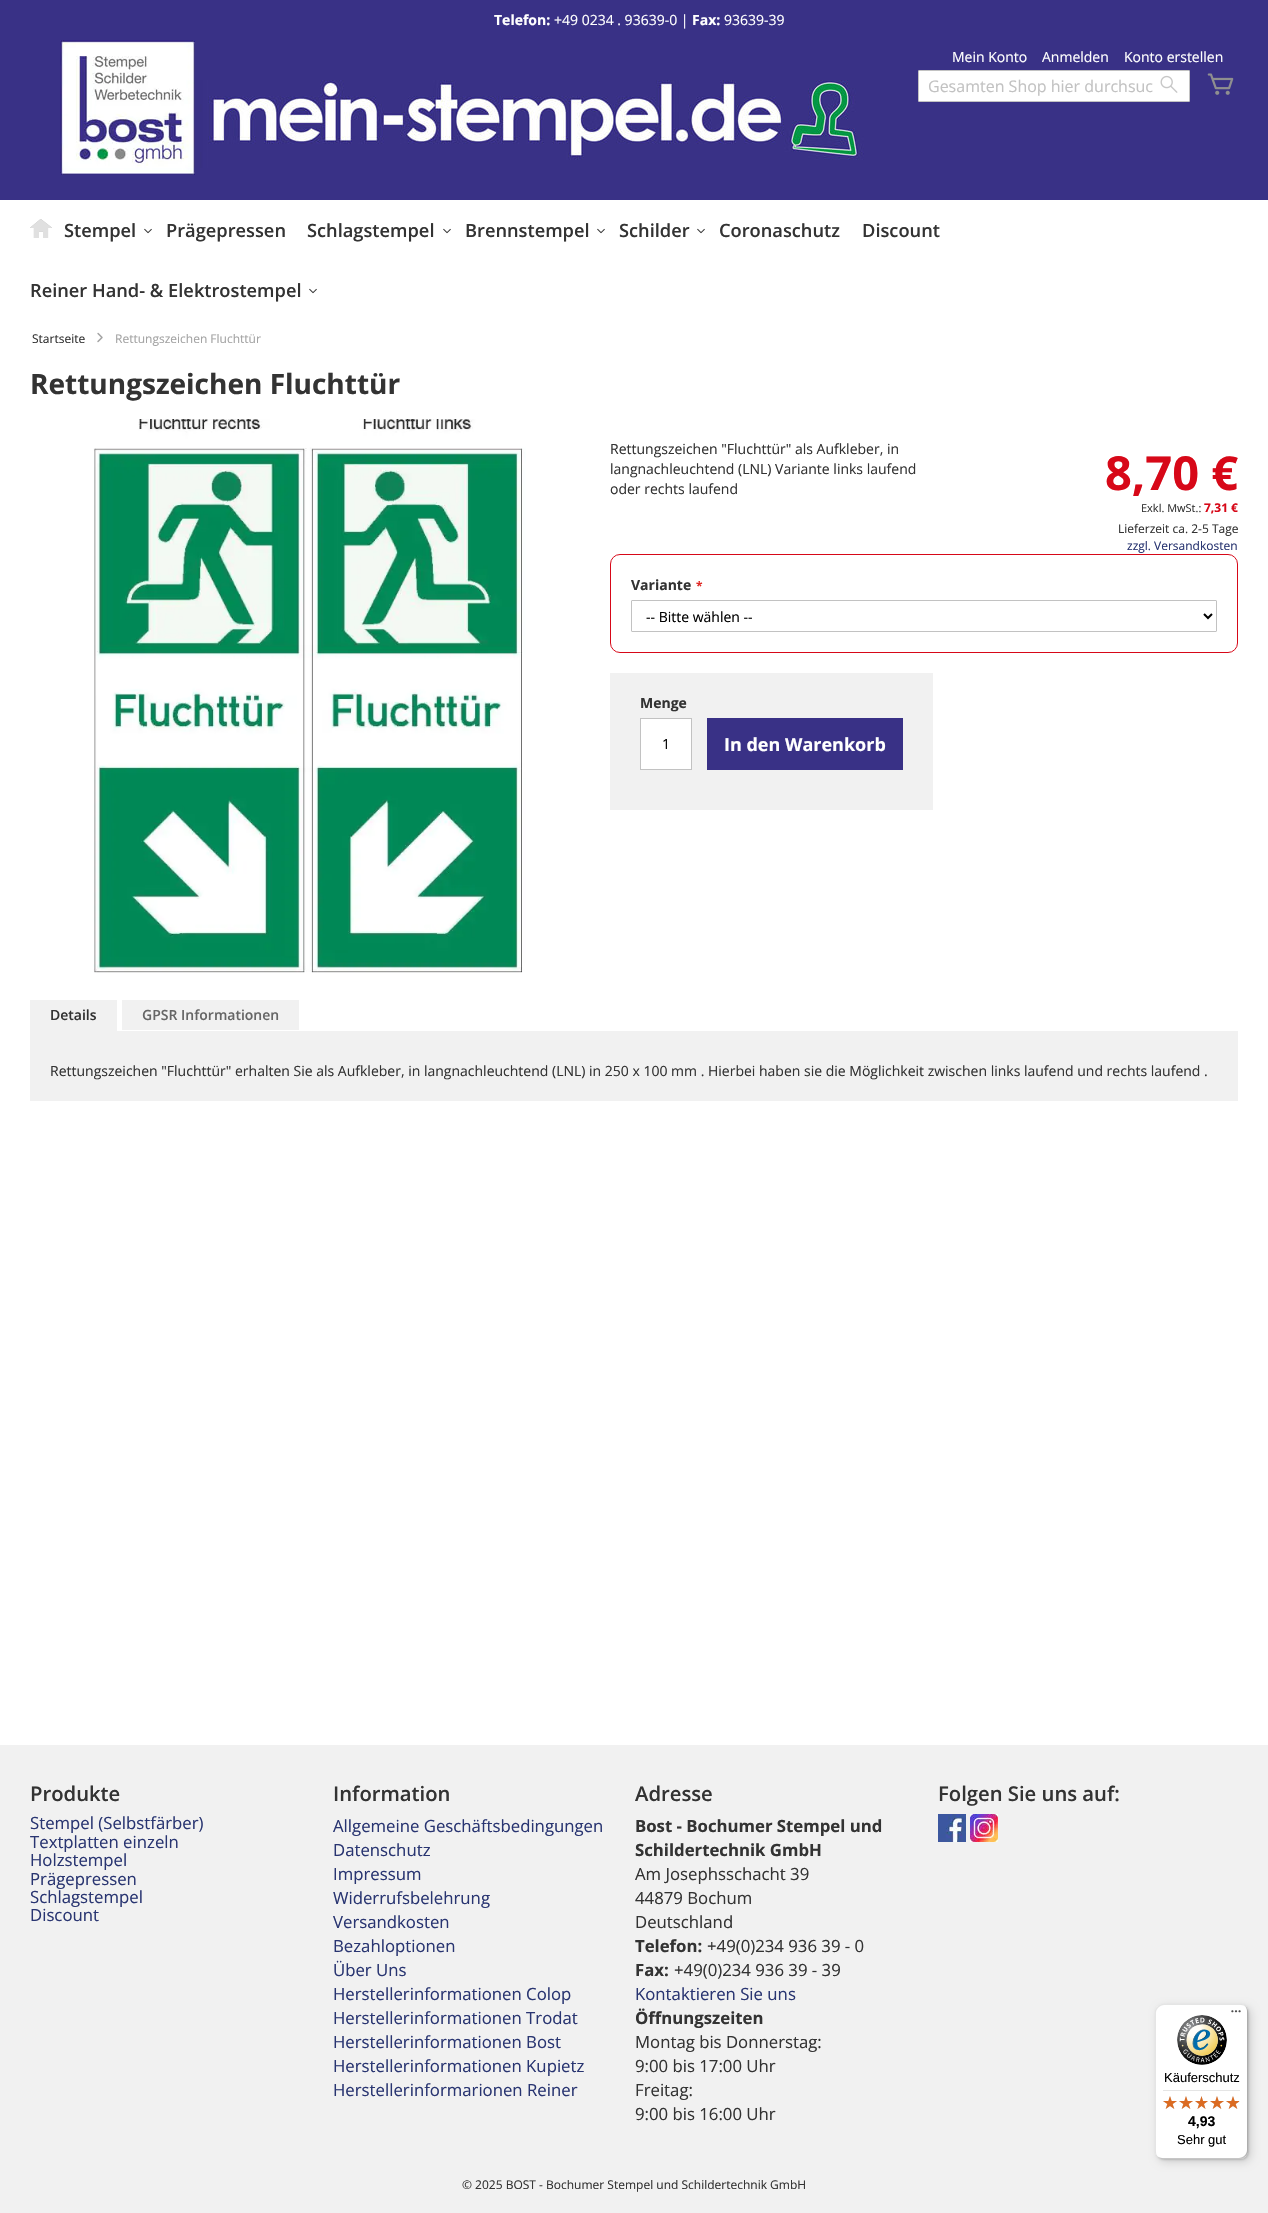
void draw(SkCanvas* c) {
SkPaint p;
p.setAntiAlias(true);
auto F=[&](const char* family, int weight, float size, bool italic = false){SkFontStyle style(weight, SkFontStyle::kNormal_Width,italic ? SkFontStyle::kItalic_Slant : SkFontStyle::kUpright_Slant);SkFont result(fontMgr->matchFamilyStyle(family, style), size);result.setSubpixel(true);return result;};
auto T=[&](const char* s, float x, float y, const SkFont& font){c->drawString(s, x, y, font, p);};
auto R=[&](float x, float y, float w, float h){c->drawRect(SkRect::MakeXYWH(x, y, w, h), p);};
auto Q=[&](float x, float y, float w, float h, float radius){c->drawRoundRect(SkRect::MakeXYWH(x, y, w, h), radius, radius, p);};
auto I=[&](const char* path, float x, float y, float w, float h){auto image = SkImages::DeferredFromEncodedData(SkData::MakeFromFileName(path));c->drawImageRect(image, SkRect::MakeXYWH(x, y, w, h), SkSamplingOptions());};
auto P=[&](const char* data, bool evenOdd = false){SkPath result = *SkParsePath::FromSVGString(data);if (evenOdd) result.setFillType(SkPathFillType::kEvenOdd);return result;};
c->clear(0xfff1f1f1);
p.setColor(0xff393186);
R(0,0,1268,200);
auto f1 = F("Open Sans",700,14);
p.setColor(0xffffffff);
T("Telefon:",494,25,f1);
auto f2 = F("Open Sans",400,14);
T("+49 0234 . 93639-0 |",554,25,f2);
T("Fax:",692,25,f1);
T("93639-39",724,25,f2);
T("Mein Konto",952,62,f2);
T("Anmelden",1042,62,f2);
T("Konto erstellen",1124,62,f2);
I("1.png",200,80,664,88);
I("2.png",60,40,135,135);
c->drawRoundRect(SkRect::MakeXYWH(918.5,70.5,271,31),.5,.5,p);
p.setStroke(true);
p.setStrokeWidth(1);
p.setColor(0xffc2c2c2);
c->drawRoundRect(SkRect::MakeXYWH(918.5,70.5,271,31),.5,.5,p);
auto f3 = F("Open Sans",400,16);
p.setStroke(false);
T("Gesamten Shop hier durchsuc",928,92,f3);
I("3.png",1160,75,18,18);
I("4.png",1207,73,27,22);
p.setColor(0xffffffff);
R(0,200,1268,1545);
I("5.png",30,219,22,19);
auto f4 = F("Open Sans",600,18.25);
p.setColor(0xff333333);
T("Stempel",64,237,f4);
I("6.png",144,228,8,6);
T("Prägepressen",166,237,f4);
T("Schlagstempel",307,237,f4);
I("6.png",443,228,8,6);
T("Brennstempel",465,237,f4);
I("6.png",597,228,8,6);
T("Schilder",619,237,f4);
I("6.png",697,228,8,6);
T("Coronaschutz",719,237,f4);
T("Discount",862,237,f4);
T("Reiner Hand- & Elektrostempel",30,297,f4);
I("6.png",309,288,8,6);
auto f5 = F("Open Sans",400,12);
T("Startseite",32,343,f5);
I("7.png",97,332,6,11);
p.setColor(0xffa3a3a3);
T("Rettungszeichen Fluchttür",115,343,f5);
auto f6 = F("Open Sans",700,28);
p.setColor(0xff333333);
T("Rettungszeichen Fluchttür",30,394,f6);
I("8.png",93,419,433,554);
T("Rettungszeichen \"Fluchttür\" als Aufkleber, in",610,454,f2);
T("langnachleuchtend (LNL) Variante links laufend",610,474,f2);
T("oder rechts laufend",610,494,f2);
auto f7 = F("Open Sans",700,47);
p.setColor(0xffd70818);
T("8,70 €",1105,490,f7);
auto f8 = F("Open Sans",400,11);
p.setColor(0xff333333);
T("Exkl. MwSt.:",1141,512,f8);
auto f9 = F("Open Sans",700,12);
p.setColor(0xffd70818);
T("7,31 €",1204,512,f9);
p.setColor(0xff333333);
T("Lieferzeit ca. 2-5 Tage",1118,533,f5);
p.setColor(0xff293571);
T("zzgl. Versandkosten",1127,550,f5);
p.setStroke(true);
p.setColor(0xffd70818);
c->drawRoundRect(SkRect::MakeXYWH(610.5,554.5,627,98),9.5,9.5,p);
p.setStroke(false);
p.setColor(0xff333333);
T("Variante",631,590,f1);
p.setColor(0xffe02b27);
T("*",696,590,f9);
p.setStroke(true);
p.setColor(0xffc2c2c2);
c->drawRoundRect(SkRect::MakeXYWH(631.5,600.5,585,31),.5,.5,p);
p.setStrokeWidth(2);
p.setColor(0xff000000);
c->drawPath(P("M1204 614l4 4l4-4"),p);
p.setStroke(false);
T("-- Bitte wählen --",646,622,f2);
p.setColor(0xfff1f1f1);
R(610,673,323,137);
p.setColor(0xff333333);
T("Menge",640,708,f1);
p.setColor(0xffffffff);
c->drawRect(SkRect::MakeXYWH(640.5,718.5,51,51),p);
p.setStroke(true);
p.setStrokeWidth(1);
p.setColor(0xffc2c2c2);
c->drawRect(SkRect::MakeXYWH(640.5,718.5,51,51),p);
p.setStroke(false);
p.setColor(0xff000000);
T("1",662,749,f2);
p.setColor(0xff393186);
R(707,718,196,52);
auto f10 = F("Open Sans",700,18);
p.setColor(0xffffffff);
T("In den Warenkorb",724,751,f10);
p.setColor(0xfff1f1f1);
R(30,1000,87,31);
auto f11 = F("Open Sans",600,14);
p.setColor(0xff333333);
T("Details",50,1020,f11);
p.setColor(0xfff1f1f1);
R(122,1000,177,30);
p.setColor(0xff666666);
T("GPSR Informationen",142,1020,f11);
p.setColor(0xfff1f1f1);
R(30,1031,1208,70);
p.setColor(0xff333333);
T("Rettungszeichen \"Fluchttür\" erhalten Sie als Aufkleber, in langnachleuchtend (LNL) in 250 x 100 mm . Hierbei haben sie die Möglichkeit zwischen links laufend und rechts laufend .",50,1076,f2);
auto f12 = F("Open Sans",600,20.25);
T("Produkte",30,1801,f12);
auto f13 = F("Open Sans",400,16.75);
p.setColor(0xff293571);
T("Stempel (Selbstfärber)",30,1829,f13);
T("Textplatten einzeln",30,1848,f13);
T("Holzstempel",30,1866,f13);
T("Prägepressen",30,1885,f13);
T("Schlagstempel",30,1903,f13);
T("Discount",30,1921,f13);
p.setColor(0xff333333);
T("Information",333,1801,f12);
p.setColor(0xff293571);
T("Allgemeine Geschäftsbedingungen",333,1832,f13);
T("Datenschutz",333,1856,f13);
T("Impressum",333,1880,f13);
T("Widerrufsbelehrung",333,1904,f13);
T("Versandkosten",333,1928,f13);
T("Bezahloptionen",333,1952,f13);
T("Über Uns",333,1976,f13);
T("Herstellerinformationen Colop",333,2000,f13);
T("Herstellerinformationen Trodat",333,2024,f13);
T("Herstellerinformationen Bost",333,2048,f13);
T("Herstellerinformationen Kupietz",333,2072,f13);
T("Herstellerinformarionen Reiner",333,2096,f13);
p.setColor(0xff333333);
T("Adresse",635,1801,f12);
auto f14 = F("Open Sans",700,16.75);
T("Bost - Bochumer Stempel und",635,1832,f14);
T("Schildertechnik GmbH",635,1856,f14);
T("Am Josephsschacht 39",635,1880,f13);
T("44879 Bochum",635,1904,f13);
T("Deutschland",635,1928,f13);
T("Telefon:",635,1952,f14);
T("+49(0)234 936 39 - 0",707,1952,f13);
T("Fax:",635,1976,f14);
T("+49(0)234 936 39 - 39",674,1976,f13);
p.setColor(0xff293571);
T("Kontaktieren Sie uns",635,2000,f13);
p.setColor(0xff333333);
T("Öffnungszeiten",635,2024,f14);
T("Montag bis Donnerstag:",635,2048,f13);
T("9:00 bis 17:00 Uhr",635,2072,f13);
T("Freitag:",635,2096,f13);
T("9:00 bis 16:00 Uhr",635,2120,f13);
T("Folgen Sie uns auf:",938,1801,f12);
I("9.png",938,1814,28,28);
I("10.png",970,1814,28,28);
T("© 2025 BOST - Bochumer Stempel und Schildertechnik GmbH",462,2189,f5);
p.setColor(0x26000000);
p.setMaskFilter(SkMaskFilter::MakeBlur(kNormal_SkBlurStyle, 4));
c->drawRoundRect(SkRect::MakeXYWH(1158,2007,93,155),8,8,p);
p.setMaskFilter(nullptr);
p.setMaskFilter(SkMaskFilter::MakeBlur(kNormal_SkBlurStyle, 1));
c->drawRoundRect(SkRect::MakeXYWH(1156,2005,93,155),8,8,p);
p.setMaskFilter(nullptr);
p.setColor(0xffffffff);
Q(1155,2004,93,155,8);
p.setColor(0x1a000000);
c->drawPath(P("M1164 2005h77c2 0 4 1 6 3c-2-2-4-4-7-4h-77c-4 0-8 4-8 8v139c0 3 2 5 4 7c-2-2-3-4-3-6v-139c0-4 4-8 8-8z"),p);
p.setColor(0x33000000);
c->drawPath(P("M1156 2155c2 2 4 4 7 4h77c4 0 8-4 8-8v-139c0-3-2-5-4-7c2 2 3 4 3 6v139c0 4-4 8-8 8h-77c-2 0-4-1-6-3z"),p);
p.setColor(0x33323232);
c->drawPath(P("M1157 2156c1 2 4 3 6 3h77c4 0 8-4 8-8v-139c0-2-1-5-3-6c1 1 2 3 2 5v139c0 5-3 8-8 8h-77c-2 0-4-1-5-2z"),p);
I("11.png",1231,2010,10,3);
p.setColor(0x4dffffff);
c->drawPath(P("M1157 2156c1 2 4 3 6 3h77c4 0 8-4 8-8v-1c0 5-4 8-8 8h-78c-2 0-4-1-5-2z"),p);
I("12.png",1177,2015,50,50);
auto f15 = F("Liberation Sans",400,13);
p.setColor(0xff000000);
T("Käuferschutz",1164,2082,f15);
p.setColor(0xffe5e5e5);
R(1163,2090,77,1);
I("13.png",1163,2096,14,13);
I("13.png",1179,2096,14,13);
I("14.png",1195,2096,13,13);
I("13.png",1210,2096,14,13);
I("13.png",1226,2096,14,13);
I("15.png",1163,2096,14,13);
I("15.png",1179,2096,14,13);
I("16.png",1195,2096,13,13);
I("15.png",1210,2096,14,13);
I("17.png",1226,2096,13,13);
auto f16 = F("Liberation Sans",700,14);
p.setColor(0xff000000);
T("4,93",1188,2126,f16);
T("Sehr gut",1177,2144,f15);
}
